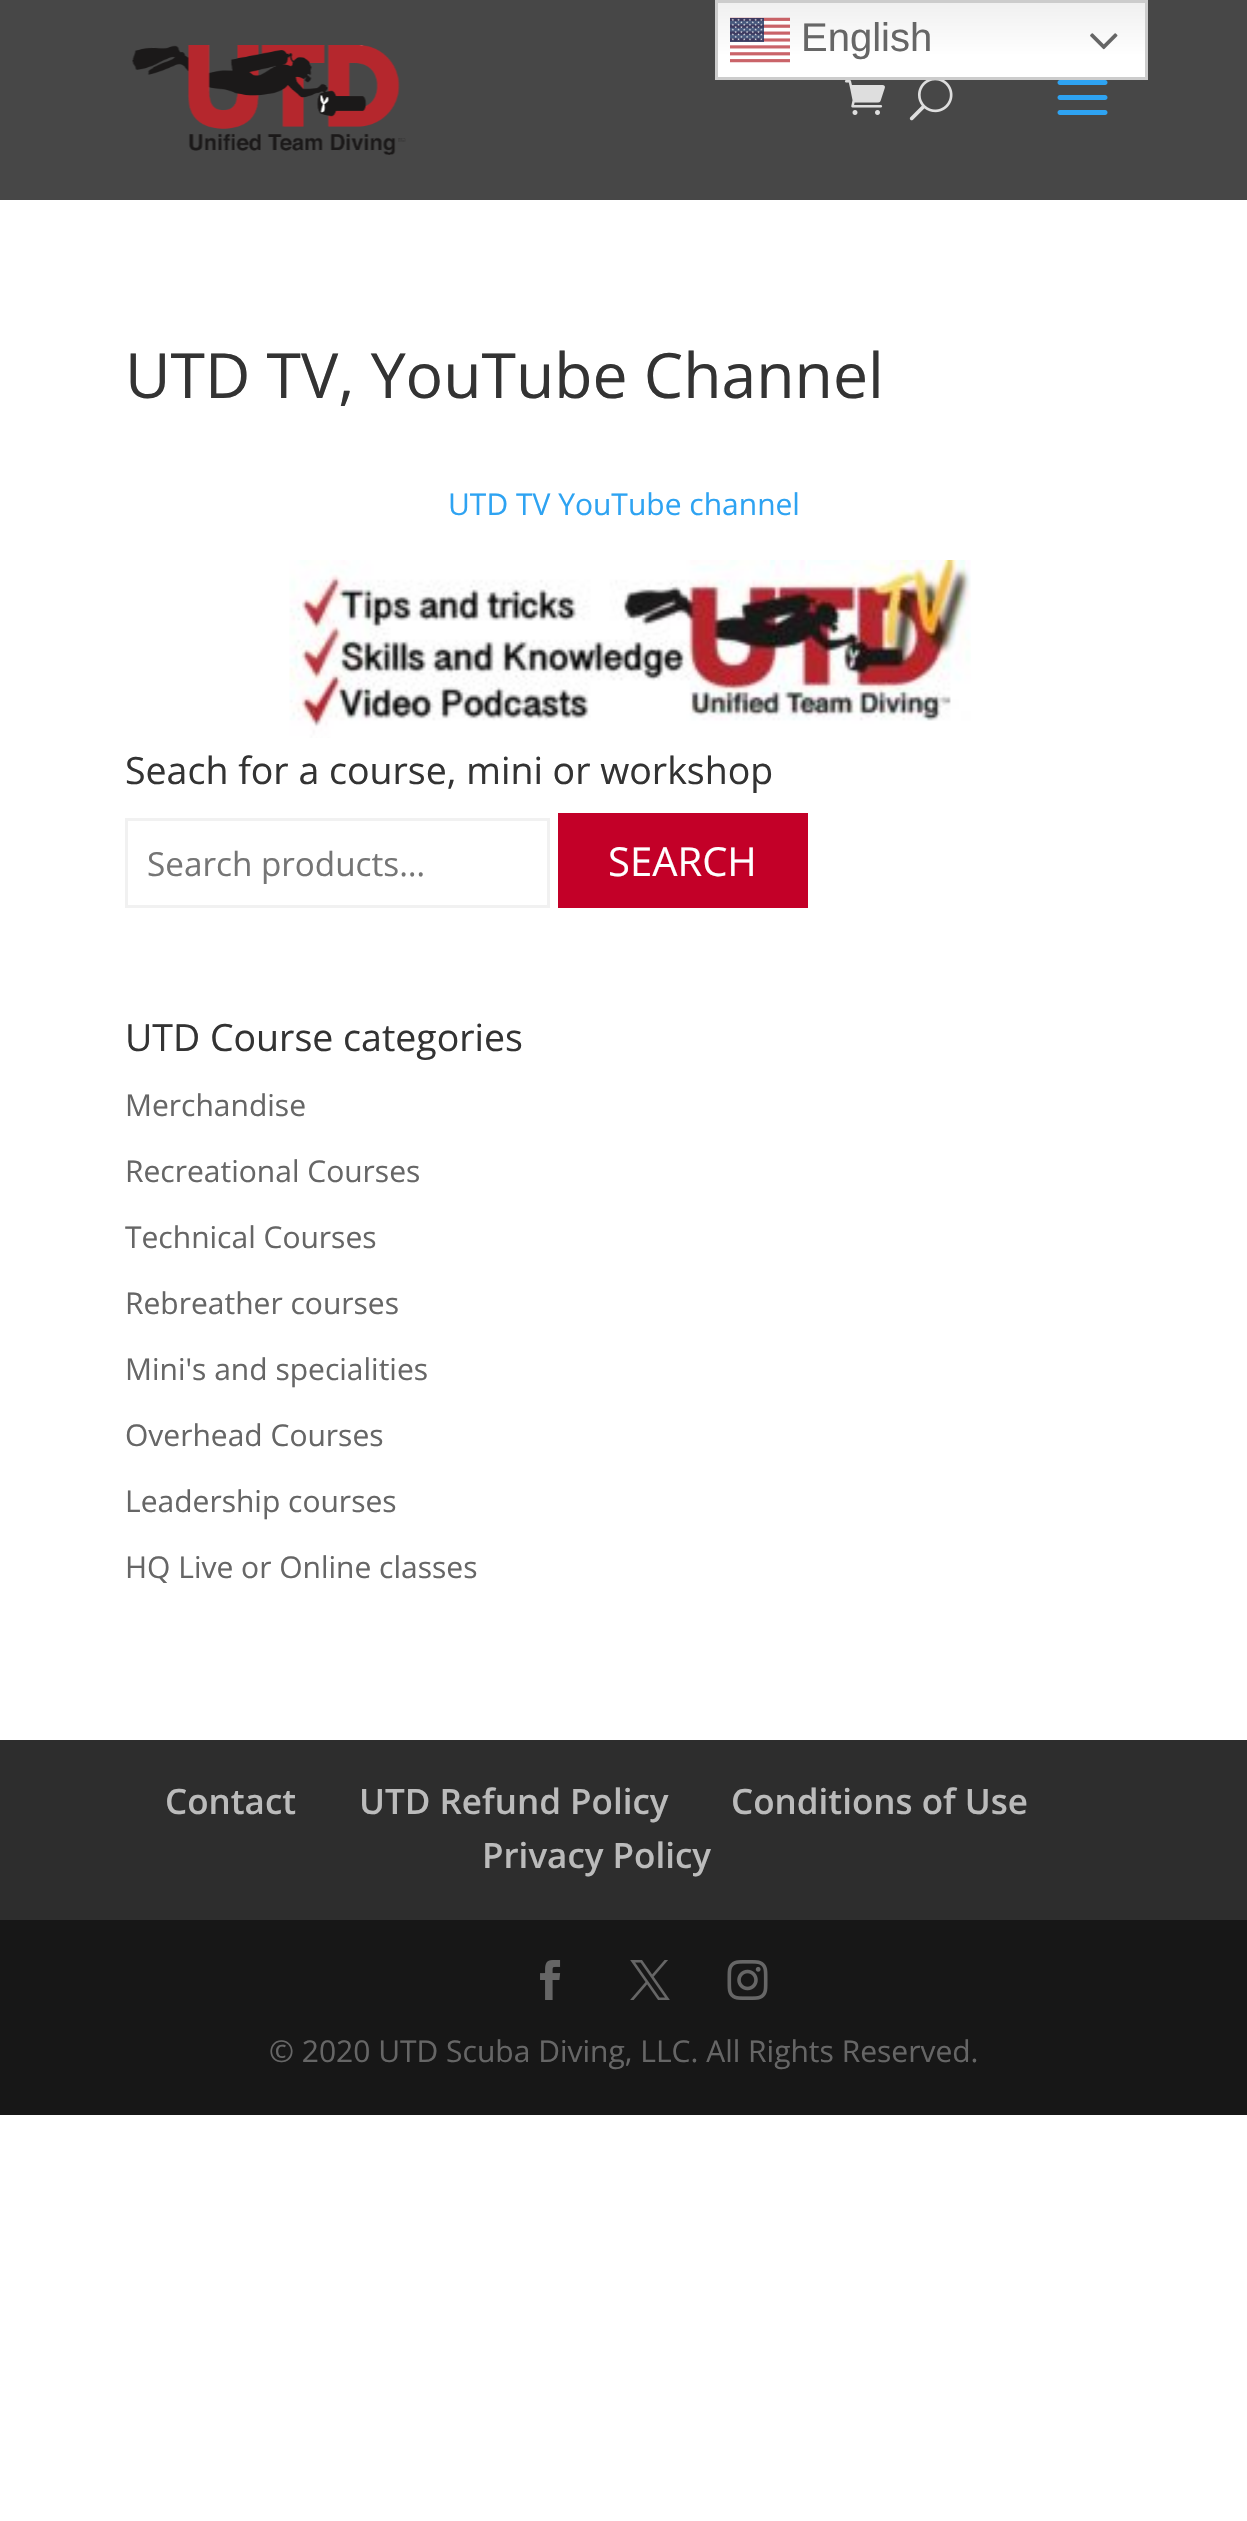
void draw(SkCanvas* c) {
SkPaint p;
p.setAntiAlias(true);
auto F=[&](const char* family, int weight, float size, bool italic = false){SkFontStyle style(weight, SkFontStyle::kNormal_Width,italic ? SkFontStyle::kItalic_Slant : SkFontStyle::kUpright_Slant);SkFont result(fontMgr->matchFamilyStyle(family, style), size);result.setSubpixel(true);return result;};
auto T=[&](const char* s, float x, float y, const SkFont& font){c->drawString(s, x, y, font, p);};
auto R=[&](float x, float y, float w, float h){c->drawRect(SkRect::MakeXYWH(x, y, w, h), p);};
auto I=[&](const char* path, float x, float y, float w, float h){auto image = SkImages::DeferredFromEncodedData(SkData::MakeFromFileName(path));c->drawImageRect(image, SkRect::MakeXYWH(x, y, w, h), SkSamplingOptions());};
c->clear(0xffffffff);
p.setColor(0xff474747);
R(0,0,1247,200);
{
const SkColor colors[] = {0xffefefef,0xffffffff};
const float stops[] = {0,.7};
const SkPoint ends[] = {{931,0}, {931,80}};
p.setShader(SkGradientShader::MakeLinear(ends, colors, stops, 2, SkTileMode::kClamp));
p.setAlpha(255);
}
R(718,3,427,74);
p.setStroke(true);
p.setStrokeWidth(3);
p.setShader(nullptr);
p.setColor(0xffcccccc);
c->drawRect(SkRect::MakeXYWH(716.5,1.5,430,77),p);
I("1.png",730,17,60,46);
auto f1 = F("Liberation Sans",400,40);
p.setStroke(false);
p.setColor(0xff666666);
T("English",801,51,f1);
I("2.png",1090,33,28,17);
I("3.png",132,45,274,110);
I("4.png",844,80,41,35);
I("5.png",909,80,44,41);
I("6.png",1057,80,51,35);
auto f2 = F("Open Sans",400,62.5);
p.setColor(0xff333333);
T("UTD TV, YouTube Channel",125,398,f2);
auto f3 = F("Open Sans",400,30);
p.setColor(0xff2ea3f2);
T("UTD TV YouTube channel",448,515,f3);
I("7.png",289,560,682,178);
auto f4 = F("Open Sans",400,37.5);
p.setColor(0xff333333);
T("Seach for a course, mini or workshop",125,784,f4);
p.setStroke(true);
p.setColor(0xfff1f1f1);
c->drawRect(SkRect::MakeXYWH(126.5,819.5,422,87),p);
auto f5 = F("Open Sans",400,33.25);
p.setStroke(false);
p.setColor(0xff757575);
T("Search products…",147,876,f5);
p.setColor(0xffc30028);
R(558,813,250,95);
auto f6 = F("Open Sans",400,40);
p.setColor(0xffffffff);
T("SEARCH",608,876,f6);
p.setColor(0xff333333);
T("UTD Course categories",125,1051,f4);
p.setColor(0xff666666);
T("Merchandise",125,1116,f3);
T("Recreational Courses",125,1182,f3);
T("Technical Courses",125,1248,f3);
T("Rebreather courses",125,1314,f3);
T("Mini's and specialities",125,1380,f3);
T("Overhead Courses",125,1446,f3);
T("Leadership courses",125,1512,f3);
T("HQ Live or Online classes",125,1578,f3);
p.setColor(0xff2d2d2d);
R(0,1740,1247,180);
auto f7 = F("Open Sans",600,35);
p.setColor(0xffbbbbbb);
T("Contact",165,1814,f7);
T("UTD Refund Policy",359,1814,f7);
T("Conditions of Use",731,1814,f7);
T("Privacy Policy",482,1868,f7);
p.setColor(0xff171717);
R(0,1920,1247,195);
I("8.png",540,1960,21,40);
I("9.png",630,1960,40,40);
I("10.png",727,1960,41,40);
p.setColor(0xff666666);
T("© 2020 UTD Scuba Diving, LLC. All Rights Reserved.",269,2062,f3);
}
